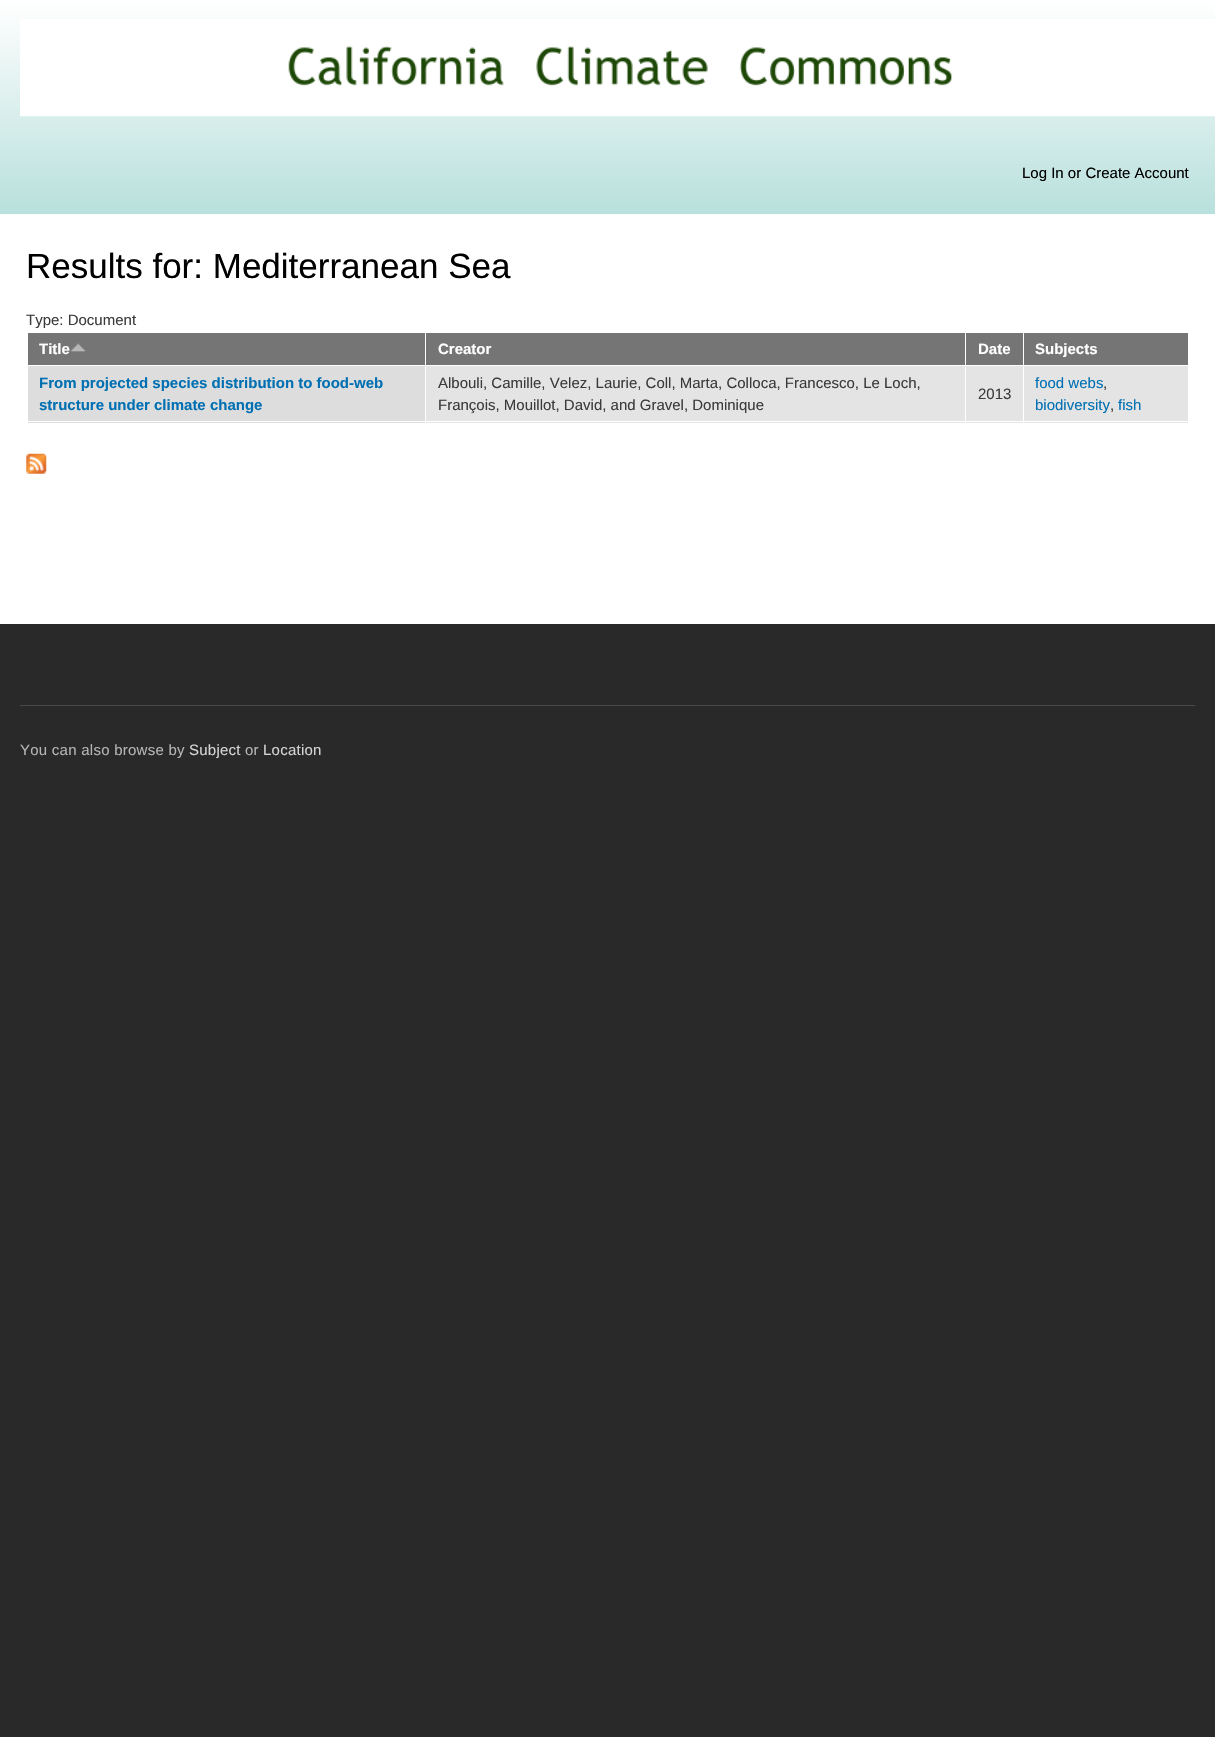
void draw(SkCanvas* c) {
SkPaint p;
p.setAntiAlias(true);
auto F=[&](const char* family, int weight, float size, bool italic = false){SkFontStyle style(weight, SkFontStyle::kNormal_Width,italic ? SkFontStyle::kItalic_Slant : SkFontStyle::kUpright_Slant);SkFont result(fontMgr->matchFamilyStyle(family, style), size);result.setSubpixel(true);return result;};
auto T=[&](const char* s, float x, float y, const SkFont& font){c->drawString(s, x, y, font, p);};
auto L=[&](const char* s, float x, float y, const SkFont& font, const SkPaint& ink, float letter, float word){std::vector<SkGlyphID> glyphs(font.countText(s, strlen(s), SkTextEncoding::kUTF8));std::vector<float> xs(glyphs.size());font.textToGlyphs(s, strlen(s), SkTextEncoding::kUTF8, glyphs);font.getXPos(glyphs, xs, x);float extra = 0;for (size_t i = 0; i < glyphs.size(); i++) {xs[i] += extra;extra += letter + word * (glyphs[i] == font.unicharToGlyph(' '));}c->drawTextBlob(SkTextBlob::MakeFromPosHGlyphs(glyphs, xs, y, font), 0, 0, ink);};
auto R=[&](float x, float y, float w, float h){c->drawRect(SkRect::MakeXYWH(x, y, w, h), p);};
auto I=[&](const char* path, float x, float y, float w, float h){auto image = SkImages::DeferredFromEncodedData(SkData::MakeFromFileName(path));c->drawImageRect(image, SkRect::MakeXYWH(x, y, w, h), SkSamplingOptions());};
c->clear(0xff292929);
p.setColor(0xffffffff);
R(0,214,1215,410);
{
const SkColor colors[] = {0xffffffff,0xffb8e0dc};
const float stops[] = {0,1};
const SkPoint ends[] = {{608,0}, {608,214}};
p.setShader(SkGradientShader::MakeLinear(ends, colors, stops, 2, SkTileMode::kClamp));
p.setAlpha(255);
}
R(0,0,1215,214);
I("1.png",20,19,1195,98);
auto f1 = F("Liberation Sans",400,15);
p.setShader(nullptr);
p.setColor(0xff000000);
T("Log In or Create Account",1022,178,f1);
auto f2 = F("Liberation Sans",400,35);
T("Results for: Mediterranean Sea",26,278,f2);
p.setColor(0xff3b3b3b);
T("Type: Document",26,325,f1);
p.setColor(0xff757575);
R(28,333,397,32);
auto f3 = F("Liberation Sans",700,15);
p.setColor(0xffffffff);
T("Title",39,354,f3);
I("2.png",71,343,15,9);
p.setColor(0xff757575);
R(426,333,539,32);
p.setColor(0xffffffff);
T("Creator",438,354,f3);
p.setColor(0xff757575);
R(966,333,57,32);
p.setColor(0xffffffff);
T("Date",978,354,f3);
p.setColor(0xff757575);
R(1024,333,164,32);
p.setColor(0xffffffff);
T("Subjects",1035,354,f3);
p.setColor(0xffe4e4e4);
R(426,366,762,57);
p.setColor(0xffdddddd);
R(28,366,397,57);
p.setColor(0xff0070b3);
T("From projected species distribution to food-web",39,388,f3);
T("structure under climate change",39,410,f3);
p.setColor(0xffffffff);
R(1023,421,166,1);
R(1023,365,1,58);
R(965,421,59,1);
R(965,365,1,58);
R(26,421,940,1);
p.setColor(0xff3b3b3b);
T("Albouli, Camille, Velez, Laurie, Coll, Marta, Colloca, Francesco, Le Loch,",438,388,f1);
T("François, Mouillot, David, and Gravel, Dominique",438,410,f1);
T("2013",978,399,f1);
p.setColor(0xff0070b3);
T("food webs",1035,388,f1);
p.setColor(0xff3b3b3b);
T(",",1103,388,f1);
p.setColor(0xff0070b3);
T("biodiversity",1035,410,f1);
p.setColor(0xff3b3b3b);
T(",",1110,410,f1);
p.setColor(0xff0070b3);
T("fish",1118,410,f1);
I("3.png",26,453,21,21);
p.setColor(0xff494949);
R(20,705,1175,1);
p.setColor(0xffb4b4b4);
L("You can also browse by",20,755,f1,p,.25,0);
p.setColor(0xffd4d4d4);
L("Subject",189,755,f1,p,.25,0);
p.setColor(0xffb4b4b4);
L("or",245,755,f1,p,.25,0);
p.setColor(0xffd4d4d4);
L("Location",263,755,f1,p,.25,0);
}
